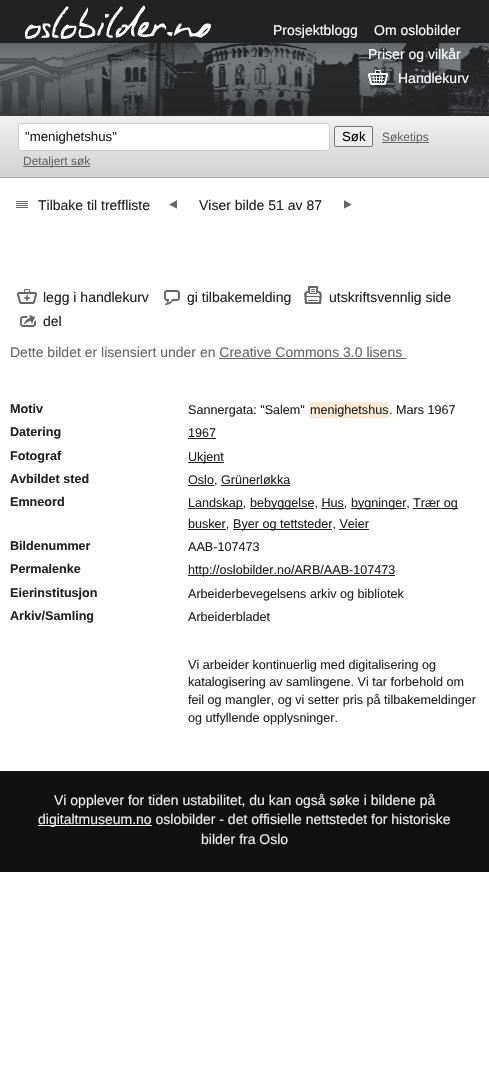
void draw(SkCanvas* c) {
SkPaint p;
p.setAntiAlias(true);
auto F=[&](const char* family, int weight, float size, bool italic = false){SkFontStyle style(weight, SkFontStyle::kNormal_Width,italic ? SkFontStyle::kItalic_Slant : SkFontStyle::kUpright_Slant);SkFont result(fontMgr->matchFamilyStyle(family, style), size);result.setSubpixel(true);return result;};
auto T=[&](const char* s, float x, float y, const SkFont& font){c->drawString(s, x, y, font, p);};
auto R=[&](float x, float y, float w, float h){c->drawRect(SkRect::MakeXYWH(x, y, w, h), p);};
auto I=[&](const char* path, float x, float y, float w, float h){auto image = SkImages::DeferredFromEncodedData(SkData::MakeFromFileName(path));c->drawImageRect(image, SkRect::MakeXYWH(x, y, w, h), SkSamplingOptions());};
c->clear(0xffffffff);
p.setColor(0xff222222);
R(0,0,489,43);
I("1.png",0,43,489,73);
I("2.png",25,5,187,34);
auto f1 = F("Liberation Sans",400,14);
p.setColor(0xffffffff);
T("Prosjektblogg",273,35,f1);
T("Om oslobilder",374,35,f1);
T("Priser og vilkår",368,59,f1);
I("3.png",368,70,20,15);
T("Handlekurv",398,83,f1);
{
const SkColor colors[] = {0xfff1f1f1,0xffd1d1d1};
const float stops[] = {0,1};
const SkPoint ends[] = {{245,116}, {245,177}};
p.setShader(SkGradientShader::MakeLinear(ends, colors, stops, 2, SkTileMode::kClamp));
p.setAlpha(255);
}
R(0,116,489,61);
p.setShader(nullptr);
p.setColor(0xffaaaaaa);
R(0,177,489,1);
p.setColor(0xffffffff);
c->drawRoundRect(SkRect::MakeXYWH(18.5,123.5,311,27),2.5,2.5,p);
p.setStroke(true);
p.setStrokeWidth(1);
p.setColor(0xffcccccc);
c->drawRoundRect(SkRect::MakeXYWH(18.5,123.5,311,27),2.5,2.5,p);
auto f2 = F("Liberation Sans",400,13.25);
p.setStroke(false);
p.setColor(0xff222222);
T("\"menighetshus\"",25,141,f2);
p.setColor(0xffefefef);
c->drawRoundRect(SkRect::MakeXYWH(334.5,126.5,38,20),1.5,1.5,p);
p.setStroke(true);
p.setColor(0xff767676);
c->drawRoundRect(SkRect::MakeXYWH(334.5,126.5,38,20),1.5,1.5,p);
p.setStroke(false);
p.setColor(0xff000000);
T("Søk",342,141,f2);
p.setColor(0xff666666);
R(382,142,47,1);
auto f3 = F("Liberation Sans",400,12);
T("Søketips",382,141,f3);
R(23,166,67,1);
T("Detaljert søk",23,165,f3);
I("4.png",16,201,12,7);
p.setColor(0xff222222);
T("Tilbake til treffliste",38,210,f1);
I("5.png",169,200,8,9);
T("Viser bilde 51 av 87",199,210,f1);
I("6.png",344,200,8,9);
I("7.png",17,289,20,15);
T("legg i handlekurv",43,302,f1);
I("8.png",164,290,16,15);
T("gi tilbakemelding",187,302,f1);
I("9.png",304,286,18,18);
T("utskriftsvennlig side",329,302,f1);
I("10.png",20,315,16,12);
T("del",43,326,f1);
p.setColor(0xff666666);
T("Dette bildet er lisensiert under en Creative Commons 3.0 lisens",10,357,f1);
R(219,358,187,1);
auto f4 = F("Liberation Sans",700,12.6);
p.setColor(0xff222222);
T("Motiv",10,413,f4);
auto f5 = F("Liberation Sans",400,12.6);
T("Sannergata: \"Salem\"",188,414,f5);
p.setColor(0xfffaebd7);
R(309,402,80,16);
p.setColor(0xff222222);
T("menighetshus",310,414,f5);
T(". Mars 1967",389,414,f5);
T("Datering",10,436,f4);
T("1967",188,437,f5);
R(188,438,28,1);
T("Fotograf",10,460,f4);
R(188,462,36,1);
T("Ukjent",188,461,f5);
T("Avbildet sted",10,483,f4);
R(188,485,26,1);
T("Oslo, Grünerløkka",188,484,f5);
R(221,485,69,1);
T("Emneord",10,506,f4);
R(188,508,55,1);
T("Landskap,",188,507,f5);
R(250,508,64,1);
T("bebyggelse, Hus,",250,507,f5);
R(351,508,55,1);
T("bygninger,",351,507,f5);
R(413,508,45,1);
T("Trær og",413,507,f5);
R(321,508,23,1);
R(188,529,38,1);
T("busker,",188,528,f5);
R(233,529,99,1);
T("Byer og tettsteder, Veier",233,528,f5);
R(339,529,30,1);
T("Bildenummer",10,550,f4);
T("AAB-107473",188,551,f5);
T("Permalenke",10,573,f4);
R(188,575,207,1);
T("http://oslobilder.no/ARB/AAB-107473",188,574,f5);
T("Eierinstitusjon",10,597,f4);
T("Arbeiderbevegelsens arkiv og bibliotek",188,598,f5);
T("Arkiv/Samling",10,620,f4);
T("Arbeiderbladet",188,621,f5);
T("Vi arbeider kontinuerlig med digitalisering og",188,669,f5);
T("katalogisering av samlingene. Vi tar forbehold om",188,686,f5);
T("feil og mangler, og vi setter pris på tilbakemeldinger",188,704,f5);
T("og utfyllende opplysninger.",188,722,f5);
p.setColor(0xff111111);
R(0,771,489,101);
p.setColor(0xffeeeeee);
T("Vi opplever for tiden ustabilitet, du kan også søke i bildene på",54,805,f1);
R(38,825,114,1);
T("digitaltmuseum.no oslobilder - det offisielle nettstedet for historiske",38,824,f1);
T("bilder fra Oslo",201,844,f1);
}
